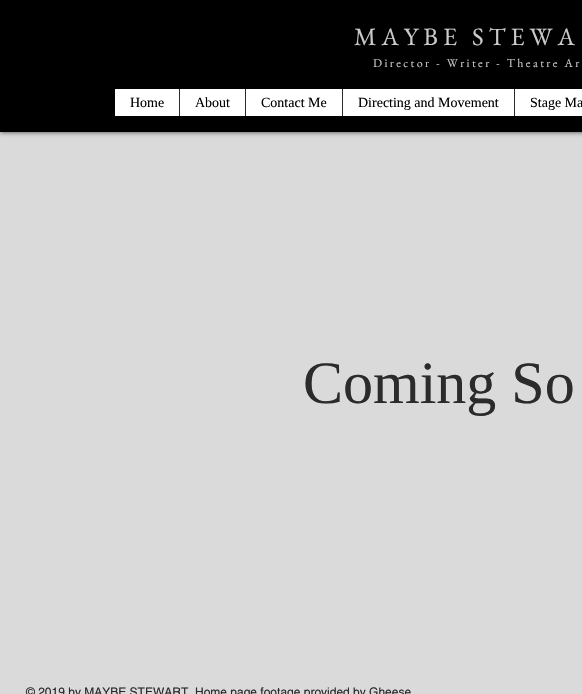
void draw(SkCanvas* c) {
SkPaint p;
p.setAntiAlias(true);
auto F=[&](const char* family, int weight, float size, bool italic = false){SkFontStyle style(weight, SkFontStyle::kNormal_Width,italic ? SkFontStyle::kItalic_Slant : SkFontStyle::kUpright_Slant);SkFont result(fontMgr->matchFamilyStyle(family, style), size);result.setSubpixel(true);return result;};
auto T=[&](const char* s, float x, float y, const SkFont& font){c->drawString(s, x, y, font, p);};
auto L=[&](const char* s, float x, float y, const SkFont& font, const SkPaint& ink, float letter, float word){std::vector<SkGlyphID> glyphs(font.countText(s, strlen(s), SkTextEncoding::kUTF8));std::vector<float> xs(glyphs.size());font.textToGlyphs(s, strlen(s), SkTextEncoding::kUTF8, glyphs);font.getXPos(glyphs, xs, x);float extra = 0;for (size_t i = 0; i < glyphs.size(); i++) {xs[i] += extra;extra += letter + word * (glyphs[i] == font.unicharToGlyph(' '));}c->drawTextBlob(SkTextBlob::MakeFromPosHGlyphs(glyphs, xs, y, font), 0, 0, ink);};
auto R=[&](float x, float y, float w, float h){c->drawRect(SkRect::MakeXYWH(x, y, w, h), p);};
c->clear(0xffdadada);
p.setColor(0xb3000000);
p.setMaskFilter(SkMaskFilter::MakeBlur(kNormal_SkBlurStyle, 2.5));
c->drawRect(SkRect::MakeXYWH(0,0,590,132),p);
p.setMaskFilter(nullptr);
p.setColor(0xff000000);
R(0,0,582,132);
auto f1 = F("EB Garamond",400,25);
p.setColor(0xffcacaca);
L("MAYBE STEWA",354,45,f1,p,5,0);
auto f2 = F("EB Garamond",400,12);
L("Director - Writer - Theatre Ar",373,67,f2,p,2.4,0);
p.setColor(0xffffffff);
R(115,89,467,27);
auto f3 = F("Liberation Serif",400,14);
p.setColor(0xff000000);
T("Home",130,107,f3);
p.setColor(0xff2b2b2b);
R(179,89,1,27);
p.setColor(0xff000000);
T("About",195,107,f3);
p.setColor(0xff2b2b2b);
R(245,89,1,27);
p.setColor(0xff000000);
T("Contact Me",261,107,f3);
p.setColor(0xff2b2b2b);
R(342,89,1,27);
p.setColor(0xff000000);
T("Directing and Movement",358,107,f3);
p.setColor(0xff2b2b2b);
R(514,89,1,27);
p.setColor(0xff000000);
T("Stage Ma",530,107,f3);
auto f4 = F("Liberation Serif",400,60);
p.setColor(0xff2b2b2b);
T("Coming So",303,403,f4);
auto f5 = F("helvetica",400,12);
T("© 2019 by MAYBE STEWART",26,696,f5);
T("Home page footage provided by Gheese",195,696,f5);
}
